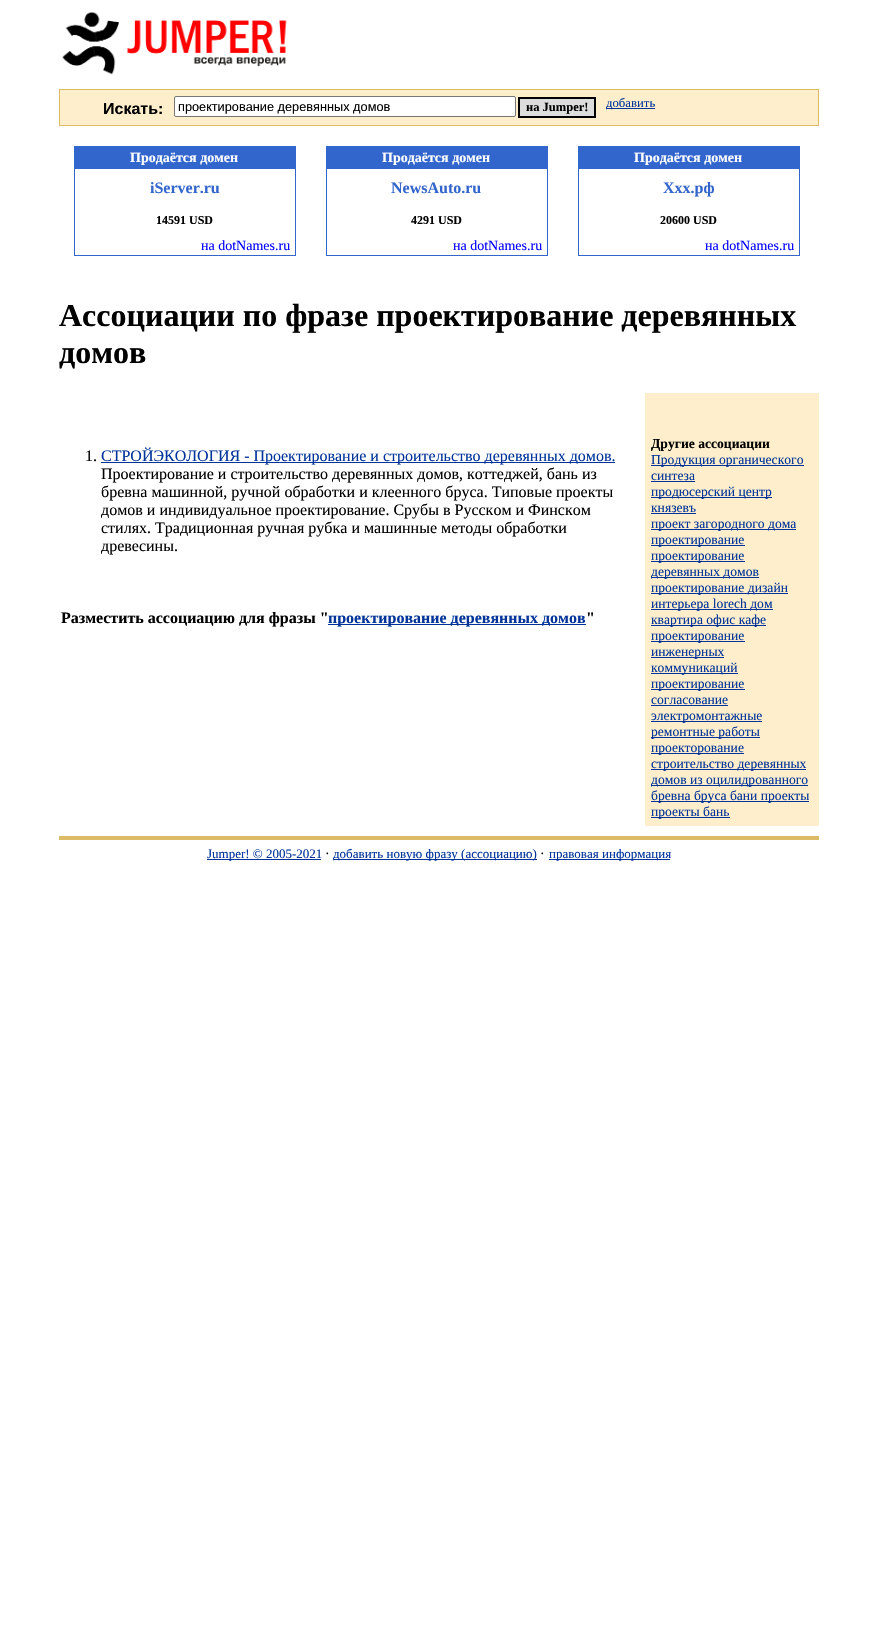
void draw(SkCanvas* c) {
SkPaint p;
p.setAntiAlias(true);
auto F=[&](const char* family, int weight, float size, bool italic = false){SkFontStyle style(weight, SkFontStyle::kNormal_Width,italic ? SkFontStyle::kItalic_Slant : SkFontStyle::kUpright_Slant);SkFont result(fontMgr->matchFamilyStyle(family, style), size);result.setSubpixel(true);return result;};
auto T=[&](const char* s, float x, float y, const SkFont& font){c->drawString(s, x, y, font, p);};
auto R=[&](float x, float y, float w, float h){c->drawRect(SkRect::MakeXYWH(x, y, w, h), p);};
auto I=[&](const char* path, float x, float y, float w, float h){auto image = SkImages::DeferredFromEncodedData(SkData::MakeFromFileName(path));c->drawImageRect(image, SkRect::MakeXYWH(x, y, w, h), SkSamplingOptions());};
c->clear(0xffffffff);
I("1.png",62,11,225,64);
p.setColor(0xffffeecc);
c->drawRect(SkRect::MakeXYWH(59.5,89.5,759,36),p);
p.setStroke(true);
p.setStrokeWidth(1);
p.setColor(0xffddbb66);
c->drawRect(SkRect::MakeXYWH(59.5,89.5,759,36),p);
auto f1 = F("Liberation Sans",700,16);
p.setStroke(false);
p.setColor(0xff000000);
T("Искать:",103,114,f1);
p.setColor(0xffffffff);
c->drawRoundRect(SkRect::MakeXYWH(174.5,96.5,341,20),1.5,1.5,p);
p.setStroke(true);
p.setColor(0xff767676);
c->drawRoundRect(SkRect::MakeXYWH(174.5,96.5,341,20),1.5,1.5,p);
auto f2 = F("Liberation Sans",400,12.75);
p.setStroke(false);
p.setColor(0xff000000);
T("проектирование деревянных домов",178,111,f2);
p.setColor(0xffdddddd);
c->drawRect(SkRect::MakeXYWH(519,98,76,19),p);
p.setStroke(true);
p.setStrokeWidth(2);
p.setColor(0xff000000);
c->drawRect(SkRect::MakeXYWH(519,98,76,19),p);
auto f3 = F("Liberation Serif",700,12.5);
p.setStroke(false);
T("на Jumper!",526,111,f3);
p.setColor(0xff003399);
R(606,108,49,1);
auto f4 = F("Liberation Serif",400,12.75);
T("добавить",606,107,f4);
p.setStroke(true);
p.setStrokeWidth(1);
p.setColor(0xff3366cc);
c->drawRect(SkRect::MakeXYWH(74.5,146.5,221,109),p);
p.setStroke(false);
R(75,147,220,22);
auto f5 = F("Liberation Serif",700,14);
p.setColor(0xffffffff);
T("Продаётся домен",130,162,f5);
auto f6 = F("Liberation Serif",700,16);
p.setColor(0xff3366cc);
T("iServer.ru",150,193,f6);
auto f7 = F("Liberation Serif",700,12);
p.setColor(0xff000000);
T("14591 USD",156,224,f7);
auto f8 = F("Liberation Serif",400,14);
p.setColor(0xff0000ff);
T("на dotNames.ru",201,250,f8);
p.setStroke(true);
p.setColor(0xff3366cc);
c->drawRect(SkRect::MakeXYWH(326.5,146.5,221,109),p);
p.setStroke(false);
R(327,147,220,22);
p.setColor(0xffffffff);
T("Продаётся домен",382,162,f5);
p.setColor(0xff3366cc);
T("NewsAuto.ru",391,193,f6);
p.setColor(0xff000000);
T("4291 USD",411,224,f7);
p.setColor(0xff0000ff);
T("на dotNames.ru",453,250,f8);
p.setStroke(true);
p.setColor(0xff3366cc);
c->drawRect(SkRect::MakeXYWH(578.5,146.5,221,109),p);
p.setStroke(false);
R(579,147,220,22);
p.setColor(0xffffffff);
T("Продаётся домен",634,162,f5);
p.setColor(0xff3366cc);
T("Ххх.рф",663,193,f6);
p.setColor(0xff000000);
T("20600 USD",660,224,f7);
p.setColor(0xff0000ff);
T("на dotNames.ru",705,250,f8);
auto f9 = F("Liberation Serif",700,32);
p.setColor(0xff000000);
T("Ассоциации по фразе проектирование деревянных",59,326,f9);
T("домов",59,363,f9);
auto f10 = F("Liberation Serif",400,16);
T("1.",85,461,f10);
p.setColor(0xff003399);
R(101,462,514,1);
T("СТРОЙЭКОЛОГИЯ - Проектирование и строительство деревянных домов.",101,461,f10);
p.setColor(0xff000000);
T("Проектирование и строительство деревянных домов, коттеджей, бань из",101,479,f10);
T("бревна машинной, ручной обработки и клеенного бруса. Типовые проекты",101,497,f10);
T("домов и индивидуальное проектирование. Срубы в Русском и Финском",101,515,f10);
T("стилях. Традиционная ручная рубка и машинные методы обработки",101,533,f10);
T("древесины.",101,551,f10);
T("Разместить ассоциацию для фразы \"",61,623,f6);
T("\"",586,623,f6);
p.setColor(0xff003399);
R(328,624,258,1);
T("проектирование деревянных домов",328,623,f6);
p.setColor(0xffffeecc);
R(645,393,174,433);
auto f11 = F("Liberation Serif",700,13.6);
p.setColor(0xff000000);
T("Другие ассоциации",651,448,f11);
p.setColor(0xff003399);
R(651,465,153,1);
auto f12 = F("Liberation Serif",400,13.6);
T("Продукция органического",651,464,f12);
T("синтеза",651,480,f12);
R(651,481,44,1);
R(651,497,121,1);
T("продюсерский центр",651,496,f12);
T("князевъ",651,512,f12);
R(651,513,45,1);
R(651,529,145,1);
T("проект загородного дома",651,528,f12);
R(651,545,94,1);
T("проектирование",651,544,f12);
R(651,561,94,1);
T("проектирование",651,560,f12);
R(651,577,108,1);
T("деревянных домов",651,576,f12);
R(651,593,137,1);
T("проектирование дизайн",651,592,f12);
R(651,609,122,1);
T("интерьера lorech дом",651,608,f12);
R(651,625,115,1);
T("квартира офис кафе",651,624,f12);
R(651,641,94,1);
T("проектирование",651,640,f12);
R(651,657,73,1);
T("инженерных",651,656,f12);
R(651,673,87,1);
T("коммуникаций",651,672,f12);
R(651,689,94,1);
T("проектирование",651,688,f12);
T("согласование",651,704,f12);
R(651,705,77,1);
R(651,721,111,1);
T("электромонтажные",651,720,f12);
R(651,737,109,1);
T("ремонтные работы",651,736,f12);
R(651,753,93,1);
T("проекторование",651,752,f12);
R(651,769,155,1);
T("строительство деревянных",651,768,f12);
R(651,785,157,1);
T("домов из оцилидрованного",651,784,f12);
R(651,801,158,1);
T("бревна бруса бани проекты",651,800,f12);
R(651,817,79,1);
T("проекты бань",651,816,f12);
p.setColor(0xffddbb66);
R(59,836,760,4);
p.setColor(0xff003399);
R(207,859,114,1);
auto f13 = F("Liberation Serif",400,13);
T("Jumper! © 2005-2021",207,858,f13);
p.setColor(0xff000000);
T("·",325,858,f8);
p.setColor(0xff003399);
R(333,859,204,1);
T("добавить новую фразу (ассоциацию)",333,858,f13);
p.setColor(0xff000000);
T("·",540,858,f8);
p.setColor(0xff003399);
R(549,859,121,1);
T("правовая информация",549,858,f13);
}
